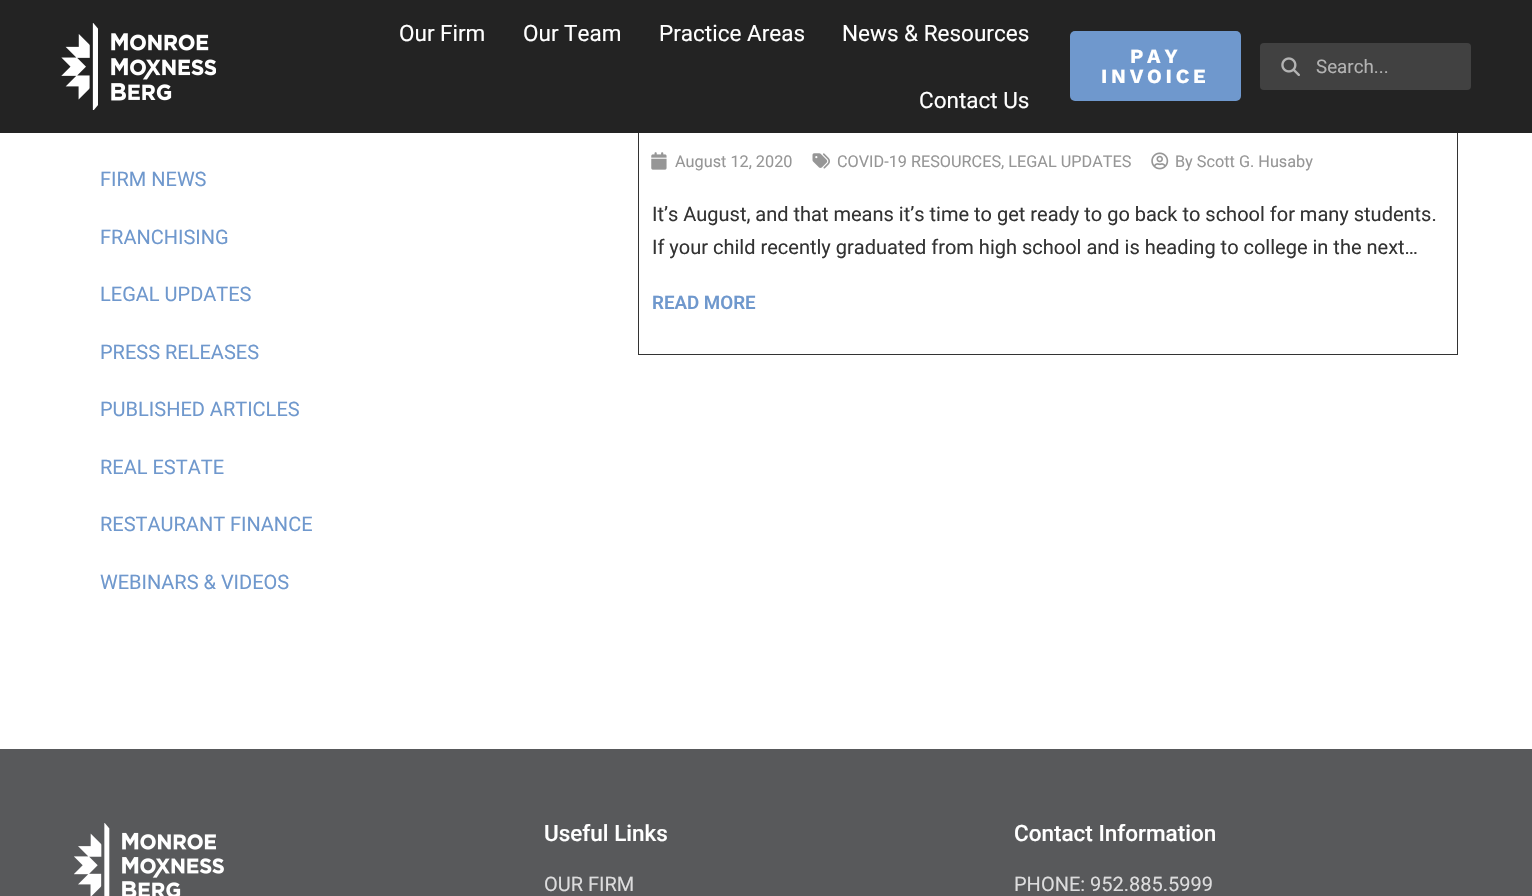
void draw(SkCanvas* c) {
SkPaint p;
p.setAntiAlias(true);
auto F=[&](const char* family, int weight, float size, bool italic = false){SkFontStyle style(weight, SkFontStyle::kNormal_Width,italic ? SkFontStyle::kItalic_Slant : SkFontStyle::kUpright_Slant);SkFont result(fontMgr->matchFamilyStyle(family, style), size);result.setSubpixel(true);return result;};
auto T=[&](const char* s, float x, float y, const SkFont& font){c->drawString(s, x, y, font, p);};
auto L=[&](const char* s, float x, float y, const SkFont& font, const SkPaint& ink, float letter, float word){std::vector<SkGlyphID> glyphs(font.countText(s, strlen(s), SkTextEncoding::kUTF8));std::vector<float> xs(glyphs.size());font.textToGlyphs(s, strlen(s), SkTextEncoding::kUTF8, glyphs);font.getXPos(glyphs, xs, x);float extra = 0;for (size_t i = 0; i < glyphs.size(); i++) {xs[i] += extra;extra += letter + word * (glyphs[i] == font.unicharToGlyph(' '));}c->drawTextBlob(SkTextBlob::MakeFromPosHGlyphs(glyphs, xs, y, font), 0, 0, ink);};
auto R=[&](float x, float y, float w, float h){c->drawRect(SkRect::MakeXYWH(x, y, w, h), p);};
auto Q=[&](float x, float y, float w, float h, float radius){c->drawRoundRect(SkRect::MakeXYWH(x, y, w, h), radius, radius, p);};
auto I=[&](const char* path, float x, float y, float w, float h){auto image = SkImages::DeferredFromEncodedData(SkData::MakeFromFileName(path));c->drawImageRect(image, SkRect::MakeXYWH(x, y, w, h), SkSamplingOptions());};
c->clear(0xffffffff);
p.setStroke(true);
p.setStrokeWidth(1);
p.setColor(0xff333333);
c->drawRect(SkRect::MakeXYWH(638.5,-.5,819,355),p);
p.setStroke(false);
p.setColor(0xff232323);
R(0,0,1532,133);
I("1.png",61,23,155,87);
auto f1 = F("Roboto",400,22.5);
p.setColor(0xffffffff);
T("Our Firm",399,41,f1);
T("Our Team",523,41,f1);
T("Practice Areas",659,41,f1);
T("News & Resources",842,41,f1);
T("Contact Us",919,108,f1);
p.setColor(0xff6f98cd);
Q(1070,31,171,70,5);
auto f2 = F("Work Sans",700,20);
p.setColor(0xffffffff);
L("PAY",1130,63,f2,p,3.75,0);
L("INVOICE",1101,83,f2,p,3.75,0);
p.setColor(0xff414141);
Q(1260,43,211,47,4);
I("2.png",1281,57,19,19);
auto f3 = F("Roboto",400,18.75);
p.setColor(0xffb3b3b3);
T("Search...",1316,73,f3);
auto f4 = F("Roboto",400,20);
p.setColor(0xff6f98cd);
T("FIRM NEWS",100,186,f4);
T("FRANCHISING",100,244,f4);
T("LEGAL UPDATES",100,301,f4);
T("PRESS RELEASES",100,359,f4);
T("PUBLISHED ARTICLES",100,416,f4);
T("REAL ESTATE",100,474,f4);
T("RESTAURANT FINANCE",100,531,f4);
T("WEBINARS & VIDEOS",100,589,f4);
I("3.png",651,152,16,18);
auto f5 = F("Roboto",400,16.25);
p.setColor(0xff969696);
T("August 12, 2020",675,167,f5);
I("4.png",812,153,18,16);
T("COVID-19 RESOURCES, LEGAL UPDATES",837,167,f5);
I("5.png",1151,152,18,18);
T("By Scott G. Husaby",1175,167,f5);
p.setColor(0xff333333);
T("It’s August, and that means it’s time to get ready to go back to school for many students.",652,221,f4);
T("If your child recently graduated from high school and is heading to college in the next…",652,254,f4);
auto f6 = F("Roboto",600,18.75);
p.setColor(0xff6f98cd);
T("READ MORE",652,309,f6);
p.setColor(0xff58595b);
R(0,749,1532,147);
I("6.png",74,823,150,73);
auto f7 = F("Roboto",500,22.5);
p.setColor(0xffffffff);
T("Useful Links",544,841,f7);
p.setColor(0xffdcdcdd);
T("OUR FIRM",544,891,f4);
p.setColor(0xffffffff);
T("Contact Information",1014,841,f7);
p.setColor(0xffdcdcdd);
T("PHONE: 952.885.5999",1014,891,f4);
}
